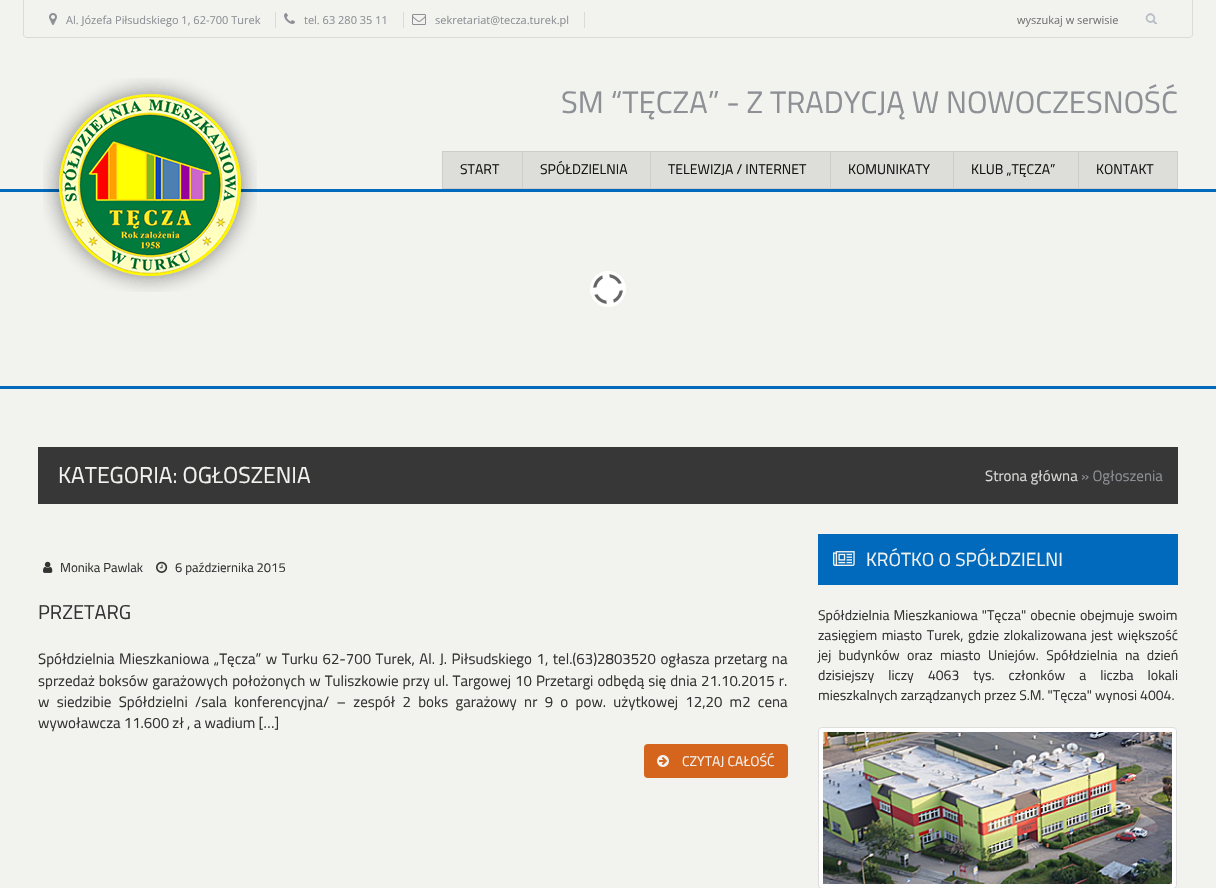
void draw(SkCanvas* c) {
SkPaint p;
p.setAntiAlias(true);
auto F=[&](const char* family, int weight, float size, bool italic = false){SkFontStyle style(weight, SkFontStyle::kNormal_Width,italic ? SkFontStyle::kItalic_Slant : SkFontStyle::kUpright_Slant);SkFont result(fontMgr->matchFamilyStyle(family, style), size);result.setSubpixel(true);return result;};
auto T=[&](const char* s, float x, float y, const SkFont& font){c->drawString(s, x, y, font, p);};
auto L=[&](const char* s, float x, float y, const SkFont& font, const SkPaint& ink, float letter, float word){std::vector<SkGlyphID> glyphs(font.countText(s, strlen(s), SkTextEncoding::kUTF8));std::vector<float> xs(glyphs.size());font.textToGlyphs(s, strlen(s), SkTextEncoding::kUTF8, glyphs);font.getXPos(glyphs, xs, x);float extra = 0;for (size_t i = 0; i < glyphs.size(); i++) {xs[i] += extra;extra += letter + word * (glyphs[i] == font.unicharToGlyph(' '));}c->drawTextBlob(SkTextBlob::MakeFromPosHGlyphs(glyphs, xs, y, font), 0, 0, ink);};
auto R=[&](float x, float y, float w, float h){c->drawRect(SkRect::MakeXYWH(x, y, w, h), p);};
auto Q=[&](float x, float y, float w, float h, float radius){c->drawRoundRect(SkRect::MakeXYWH(x, y, w, h), radius, radius, p);};
auto I=[&](const char* path, float x, float y, float w, float h){auto image = SkImages::DeferredFromEncodedData(SkData::MakeFromFileName(path));c->drawImageRect(image, SkRect::MakeXYWH(x, y, w, h), SkSamplingOptions());};
auto P=[&](const char* data, bool evenOdd = false){SkPath result = *SkParsePath::FromSVGString(data);if (evenOdd) result.setFillType(SkPathFillType::kEvenOdd);return result;};
c->clear(0xfff2f2ef);
p.setColor(0xffdadbd9);
c->drawPath(P("M23 0h1170v34c0 2-2 4-4 4h-1162c-2 0-4-2-4-4zm1 0h1168v34c0 2-1 3-3 3h-1162c-2 0-3-1-3-3z",true),p);
R(275,12,1,16);
I("1.png",49,13,8,12);
auto f1 = F("Open Sans",400,11);
p.setColor(0xff8d9095);
T("Al. Józefa Piłsudskiego 1, 62-700 Turek",66,24,f1);
p.setColor(0xffdadbd9);
R(403,12,1,16);
I("2.png",284,13,11,11);
p.setColor(0xff8d9095);
T("tel. 63 280 35 11",304,24,f1);
p.setColor(0xffdadbd9);
R(584,12,1,16);
I("3.png",412,14,14,11);
p.setColor(0xff8d9095);
T("sekretariat@tecza.turek.pl",435,24,f1);
p.setColor(0xff757575);
T("wyszukaj w serwisie",1017,24,f1);
I("4.png",1145,13,13,11);
p.setColor(0xff016abc);
R(0,189,1216,3);
I("5.png",43,78,214,214);
auto f2 = F("Titillium Web",400,31);
p.setColor(0xff8d9095);
T("SM “TĘCZA” - Z TRADYCJĄ W NOWOCZESNOŚĆ",561,113,f2);
p.setColor(0xffddddda);
c->drawRect(SkRect::MakeXYWH(442.5,151.5,735,37),p);
p.setStroke(true);
p.setStrokeWidth(1);
p.setColor(0xffcecdcb);
c->drawRect(SkRect::MakeXYWH(442.5,151.5,735,37),p);
auto f3 = F("Titillium Web",400,14);
p.setStroke(false);
p.setColor(0xff141414);
T("START",460,174,f3);
p.setColor(0xffcecdcb);
R(522,152,1,36);
p.setColor(0xff141414);
T("SPÓŁDZIELNIA",540,174,f3);
p.setColor(0xffcecdcb);
R(650,152,1,36);
p.setColor(0xff141414);
T("TELEWIZJA / INTERNET",668,174,f3);
p.setColor(0xffcecdcb);
R(830,152,1,36);
p.setColor(0xff141414);
T("KOMUNIKATY",848,174,f3);
p.setColor(0xffcecdcb);
R(953,152,1,36);
p.setColor(0xff141414);
T("KLUB „TĘCZA”",971,174,f3);
p.setColor(0xffcecdcb);
R(1078,152,1,36);
p.setColor(0xff141414);
T("KONTAKT",1096,174,f3);
p.setColor(0xff016abc);
R(0,386,1216,3);
p.setColor(0xfffefefd);
c->drawCircle(608,289,18,p);
I("6.png",593,274,30,30);
p.setStroke(true);
p.setColor(0xffffffff);
c->drawCircle(608,289,17.5,p);
p.setStroke(false);
p.setColor(0xff373737);
R(38,447,1140,57);
auto f4 = F("Titillium Web",400,23);
p.setColor(0xfff2f2ef);
T("KATEGORIA: OGŁOSZENIA",58,483,f4);
auto f5 = F("Titillium Web",400,15);
p.setColor(0xffdadbd9);
T("Strona główna",985,481,f5);
p.setColor(0xff8d9095);
T("» Ogłoszenia",1081,481,f5);
I("7.png",43,561,10,12);
auto f6 = F("Titillium Web",400,13);
p.setColor(0xff333333);
T("Monika Pawlak",60,572,f6);
I("8.png",156,561,12,12);
T("6 października 2015",175,572,f6);
auto f7 = F("Titillium Web",400,20);
T("PRZETARG",38,619,f7);
L("Spółdzielnia Mieszkaniowa „Tęcza” w Turku 62-700 Turek, Al. J. Piłsudskiego 1, tel.(63)2803520 ogłasza przetarg na",38,664,f5,p,0,1.25);
L("sprzedaż boksów garażowych położonych w Tuliszkowie przy ul. Targowej 10 Przetargi odbędą się dnia 21.10.2015 r.",38,686,f5,p,0,.75);
L("w siedzibie Spółdzielni /sala konferencyjna/ – zespół 2 boks garażowy nr 9 o pow. użytkowej 12,20 m2 cena",38,707,f5,p,0,4);
T("wywoławcza 11.600 zł , a wadium […]",38,728,f5);
p.setColor(0xffd5641c);
Q(644,744,144,34,4);
I("9.png",657,755,12,12);
p.setColor(0xfff2f2ef);
T("CZYTAJ CAŁOŚĆ",682,766,f3);
p.setColor(0xff016abc);
R(818,534,360,51);
I("10.png",833,551,22,15);
auto f8 = F("Titillium Web",400,19);
p.setColor(0xfff2f2ef);
T("KRÓTKO O SPÓŁDZIELNI",866,566,f8);
p.setColor(0xff333333);
L("Spółdzielnia Mieszkaniowa \"Tęcza\" obecnie obejmuje swoim",818,620,f3,p,0,1);
L("zasięgiem miasto Turek, gdzie zlokalizowana jest większość",818,640,f3,p,0,1.5);
L("jej budynków oraz miasto Uniejów. Spółdzielnia na dzień",818,660,f3,p,0,4.25);
L("dzisiejszy liczy 4063 tys. członków a liczba lokali",818,680,f3,p,0,11);
T("mieszkalnych zarządzanych przez S.M. \"Tęcza\" wynosi 4004.",818,700,f3);
p.setColor(0xffffffff);
c->drawRoundRect(SkRect::MakeXYWH(818.5,727.5,358,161),3.5,3.5,p);
p.setStroke(true);
p.setColor(0xffdddddd);
c->drawRoundRect(SkRect::MakeXYWH(818.5,727.5,358,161),3.5,3.5,p);
I("11.png",823,732,349,152);
}
